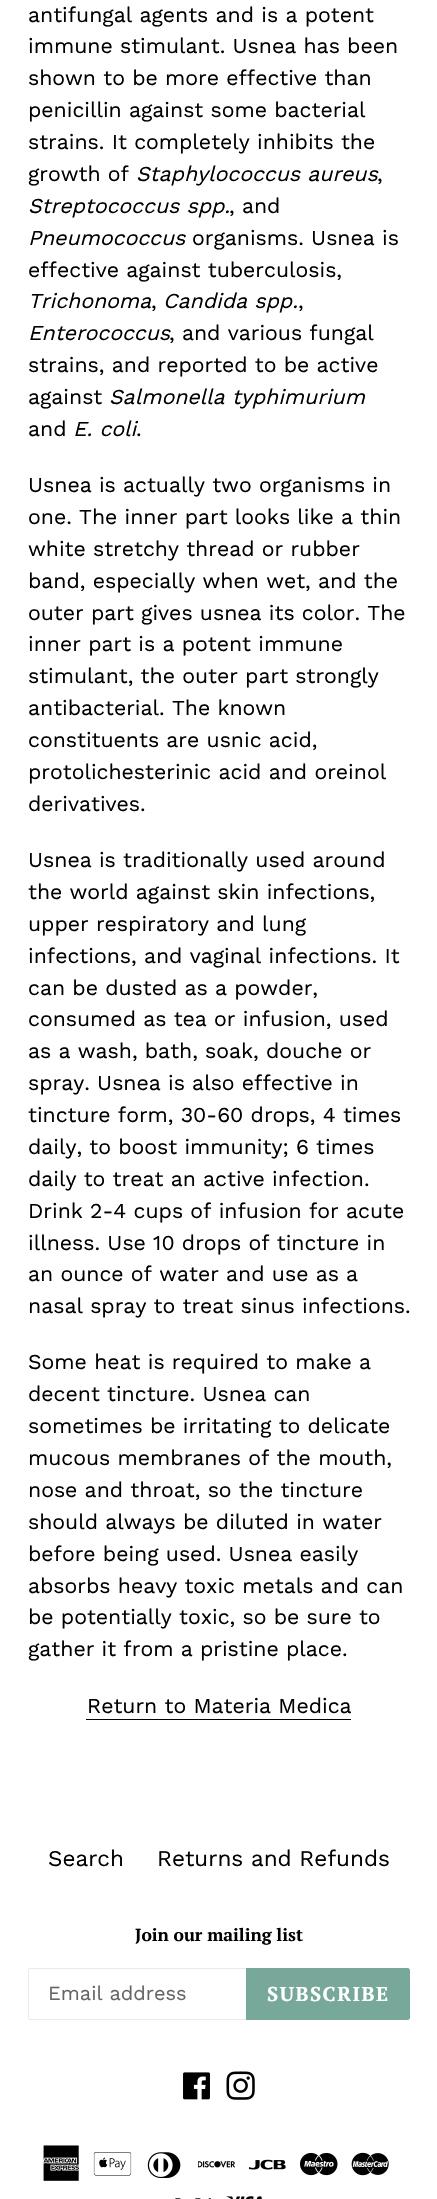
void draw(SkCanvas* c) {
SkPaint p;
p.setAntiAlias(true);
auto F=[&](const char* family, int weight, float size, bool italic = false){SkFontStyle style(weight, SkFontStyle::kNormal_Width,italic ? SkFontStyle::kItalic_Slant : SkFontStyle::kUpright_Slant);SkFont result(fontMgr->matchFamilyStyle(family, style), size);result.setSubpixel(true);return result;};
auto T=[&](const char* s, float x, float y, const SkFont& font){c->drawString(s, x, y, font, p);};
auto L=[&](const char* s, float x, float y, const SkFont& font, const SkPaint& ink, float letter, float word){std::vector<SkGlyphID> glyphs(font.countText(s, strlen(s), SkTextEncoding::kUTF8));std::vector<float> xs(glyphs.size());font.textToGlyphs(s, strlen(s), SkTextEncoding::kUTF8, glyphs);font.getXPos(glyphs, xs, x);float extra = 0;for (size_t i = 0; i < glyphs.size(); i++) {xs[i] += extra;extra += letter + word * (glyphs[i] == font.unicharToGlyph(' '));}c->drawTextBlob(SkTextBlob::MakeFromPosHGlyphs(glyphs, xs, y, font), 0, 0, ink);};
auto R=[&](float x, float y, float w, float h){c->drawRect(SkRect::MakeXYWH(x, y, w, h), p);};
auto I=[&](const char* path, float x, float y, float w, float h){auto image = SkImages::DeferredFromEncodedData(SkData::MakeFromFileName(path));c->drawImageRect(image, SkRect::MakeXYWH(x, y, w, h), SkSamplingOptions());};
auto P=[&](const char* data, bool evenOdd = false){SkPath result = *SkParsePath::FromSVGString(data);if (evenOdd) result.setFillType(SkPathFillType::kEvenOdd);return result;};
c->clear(0xffffffff);
auto f1 = F("Work Sans",400,21.25);
p.setColor(0xff000000);
T("antifungal agents and is a potent",28,22,f1);
T("immune stimulant. Usnea has been",28,53,f1);
T("shown to be more effective than",28,85,f1);
T("penicillin against some bacterial",28,117,f1);
T("strains. It completely inhibits the",28,149,f1);
T("growth of",28,181,f1);
auto f2 = F("Work Sans",400,21.25,true);
T("Staphylococcus aureus",136,181,f2);
T(",",377,181,f1);
T("Streptococcus spp.",28,213,f2);
T(", and",229,213,f1);
T("Pneumococcus",28,245,f2);
T("organisms. Usnea is",192,245,f1);
T("effective against tuberculosis,",28,277,f1);
T("Trichonoma",28,308,f2);
T(",",151,308,f1);
T("Candida spp.",163,308,f2);
T(",",298,308,f1);
T("Enterococcus",28,340,f2);
T(", and various fungal",169,340,f1);
T("strains, and reported to be active",28,372,f1);
T("against",28,404,f1);
T("Salmonella typhimurium",109,404,f2);
T("and",28,436,f1);
T("E. coli",73,436,f2);
T(".",136,436,f1);
T("Usnea is actually two organisms in",28,492,f1);
T("one. The inner part looks like a thin",28,524,f1);
T("white stretchy thread or rubber",28,556,f1);
T("band, especially when wet, and the",28,588,f1);
T("outer part gives usnea its color. The",28,620,f1);
T("inner part is a potent immune",28,651,f1);
T("stimulant, the outer part strongly",28,683,f1);
T("antibacterial. The known",28,715,f1);
T("constituents are usnic acid,",28,747,f1);
T("protolichesterinic acid and oreinol",28,779,f1);
T("derivatives.",28,811,f1);
T("Usnea is traditionally used around",28,867,f1);
T("the world against skin infections,",28,899,f1);
T("upper respiratory and lung",28,931,f1);
T("infections, and vaginal infections. It",28,963,f1);
T("can be dusted as a powder,",28,995,f1);
T("consumed as tea or infusion, used",28,1026,f1);
T("as a wash, bath, soak, douche or",28,1058,f1);
T("spray. Usnea is also effective in",28,1090,f1);
T("tincture form, 30-60 drops, 4 times",28,1122,f1);
T("daily, to boost immunity; 6 times",28,1154,f1);
T("daily to treat an active infection.",28,1186,f1);
T("Drink 2-4 cups of infusion for acute",28,1218,f1);
T("illness. Use 10 drops of tincture in",28,1250,f1);
T("an ounce of water and use as a",28,1281,f1);
T("nasal spray to treat sinus infections.",28,1313,f1);
T("Some heat is required to make a",28,1369,f1);
T("decent tincture. Usnea can",28,1401,f1);
T("sometimes be irritating to delicate",28,1433,f1);
T("mucous membranes of the mouth,",28,1465,f1);
T("nose and throat, so the tincture",28,1497,f1);
T("should always be diluted in water",28,1529,f1);
T("before being used. Usnea easily",28,1561,f1);
T("absorbs heavy toxic metals and can",28,1593,f1);
T("be potentially toxic, so be sure to",28,1624,f1);
T("gather it from a pristine place.",28,1656,f1);
T("Return to Materia Medica",87,1713,f1);
R(86,1719,265,1);
auto f3 = F("Work Sans",400,22.5);
T("Search",48,1866,f3);
T("Returns and Refunds",157,1866,f3);
auto f4 = F("PT Serif",700,17.5);
T("Join our mailing list",135,1941,f4);
p.setColor(0xffe8e9eb);
R(29,1968,217,1);
R(29,2019,217,1);
R(28,1969,1,50);
auto f5 = F("Work Sans",400,20);
p.setColor(0xff666666);
T("Email address",48,2000,f5);
p.setColor(0xff77a899);
c->drawPath(P("M246 1968h161.5c1.5 0 2.5 1 2.5 2.5v47c0 1.5-1 2.5-2.5 2.5h-161.5z"),p);
auto f6 = F("PT Serif",700,20);
p.setColor(0xffffffff);
L("SUBSCRIBE",267,2001,f6,p,1.5,0);
I("1.png",183,2072,27,28);
I("2.png",226,2071,29,29);
I("3.png",43,2145,36,36);
I("4.png",93,2152,39,24);
I("5.png",147,2152,34,26);
I("6.png",198,2161,37,7);
I("7.png",249,2159,37,11);
I("8.png",300,2152,38,24);
I("9.png",351,2152,38,24);
I("10.png",175,2198,36,1);
I("11.png",226,2196,36,3);
}
